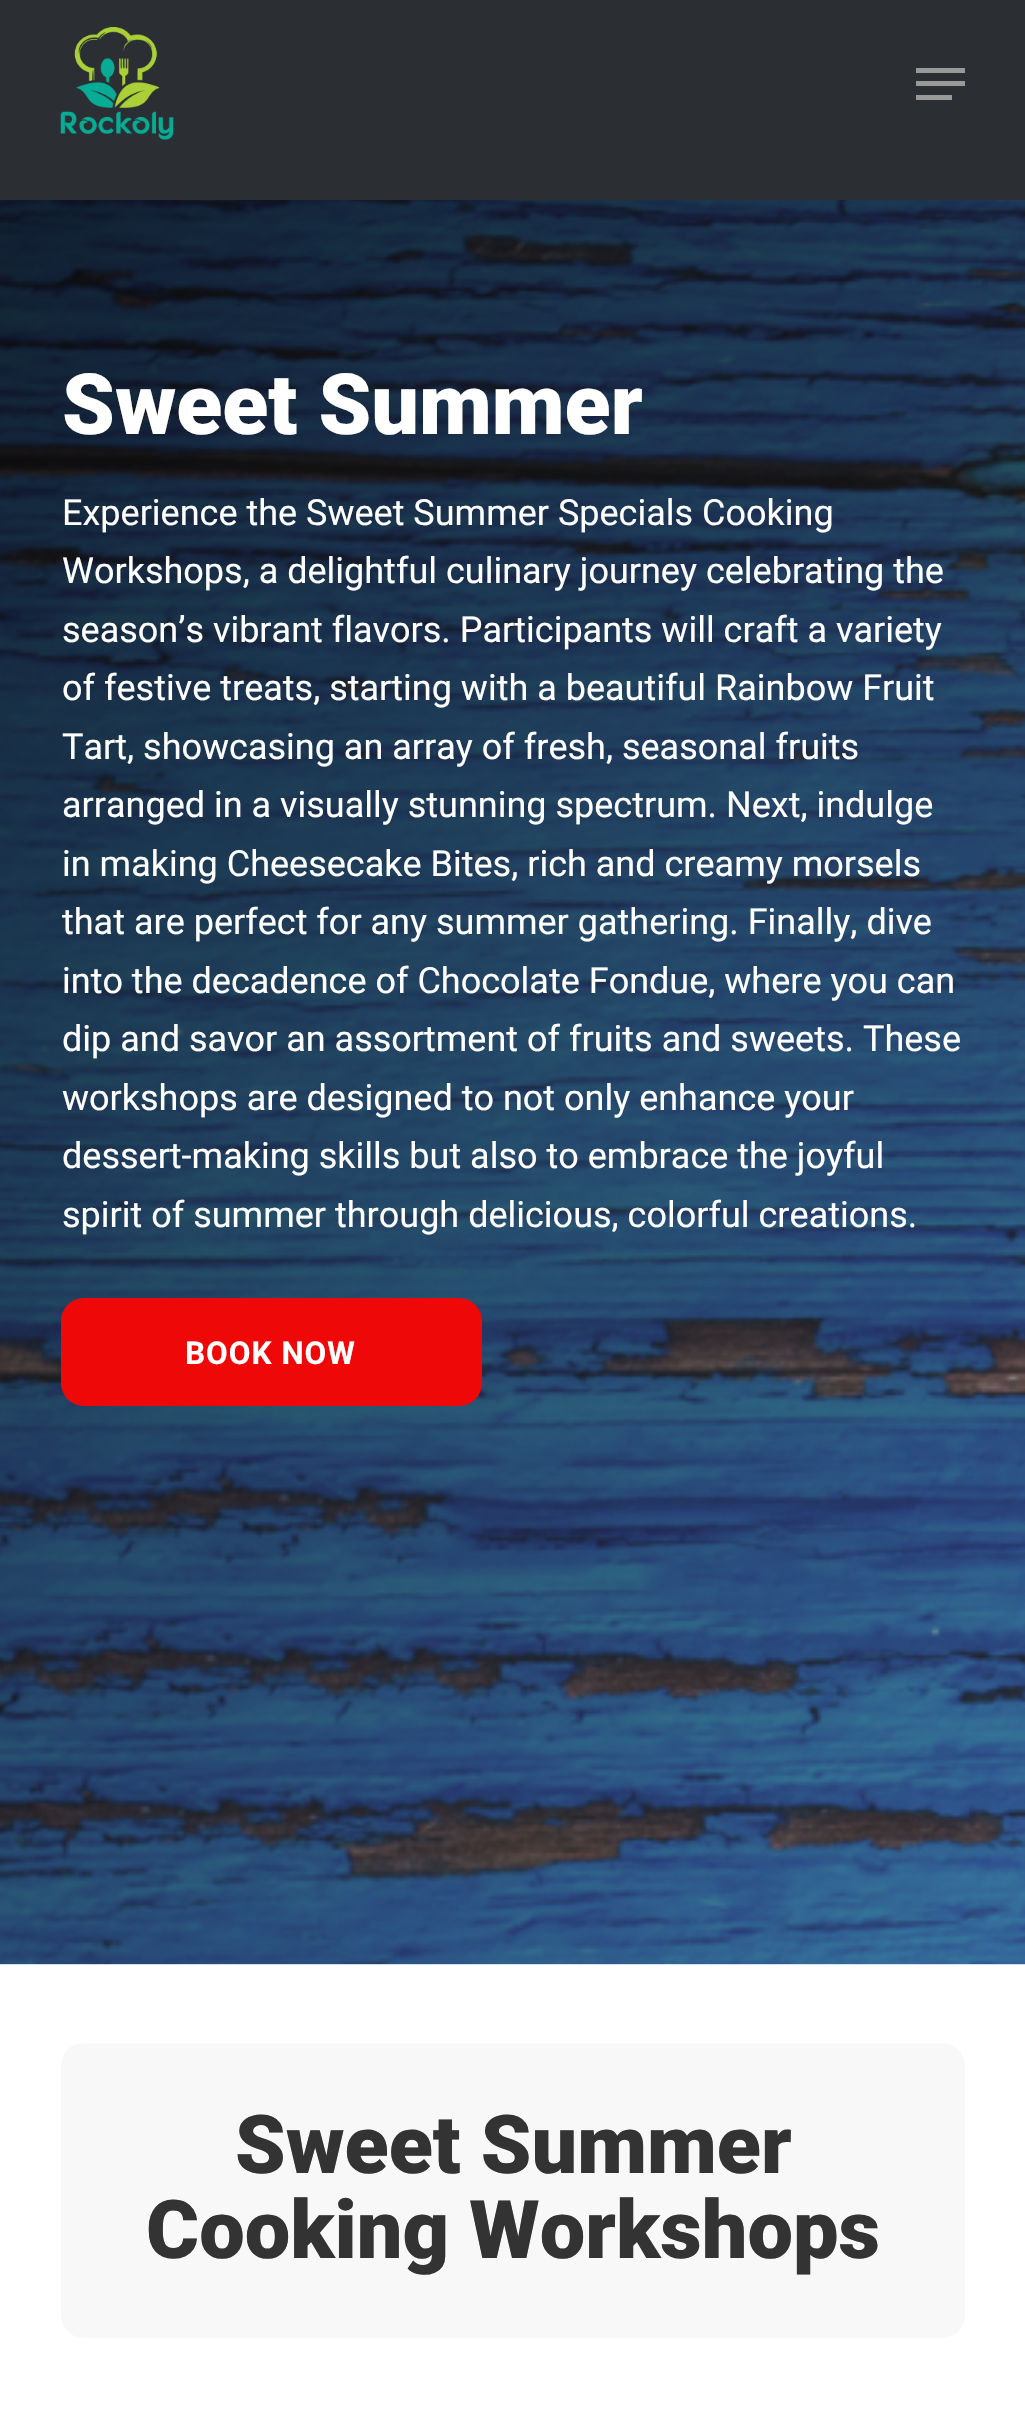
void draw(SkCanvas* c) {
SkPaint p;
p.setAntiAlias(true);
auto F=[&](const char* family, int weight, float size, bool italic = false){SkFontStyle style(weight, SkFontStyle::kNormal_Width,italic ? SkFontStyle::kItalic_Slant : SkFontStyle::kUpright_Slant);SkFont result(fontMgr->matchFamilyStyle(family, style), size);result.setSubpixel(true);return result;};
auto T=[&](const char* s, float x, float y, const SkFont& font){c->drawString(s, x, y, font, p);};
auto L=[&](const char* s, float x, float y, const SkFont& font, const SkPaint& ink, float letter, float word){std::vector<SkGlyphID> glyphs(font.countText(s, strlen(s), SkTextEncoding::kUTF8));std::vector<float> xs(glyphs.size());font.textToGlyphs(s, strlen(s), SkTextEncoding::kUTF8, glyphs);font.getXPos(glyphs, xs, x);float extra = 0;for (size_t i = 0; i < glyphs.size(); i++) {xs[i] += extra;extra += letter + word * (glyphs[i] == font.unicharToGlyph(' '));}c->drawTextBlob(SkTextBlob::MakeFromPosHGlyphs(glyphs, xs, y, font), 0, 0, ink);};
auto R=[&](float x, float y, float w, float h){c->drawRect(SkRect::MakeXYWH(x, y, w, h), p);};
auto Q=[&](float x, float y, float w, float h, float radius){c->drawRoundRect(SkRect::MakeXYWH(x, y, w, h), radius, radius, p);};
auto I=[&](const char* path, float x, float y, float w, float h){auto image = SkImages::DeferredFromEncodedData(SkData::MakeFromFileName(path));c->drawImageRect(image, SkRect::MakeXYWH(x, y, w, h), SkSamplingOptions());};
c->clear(0xffffffff);
p.setColor(0xff2b2e33);
R(0,0,1025,200);
I("1.png",60,27,114,113);
p.setColor(0xff999999);
R(916,68,49,5);
R(916,95,36,5);
R(916,81,49,5);
I("2.png",0,200,1025,1765);
auto f1 = F("Roboto",900,84.5);
p.setColor(0xffffffff);
T("Sweet Summer",62,434,f1);
auto f2 = F("Roboto",400,36);
T("Experience the Sweet Summer Specials Cooking",62,525,f2);
T("Workshops, a delightful culinary journey celebrating the",62,583,f2);
T("season’s vibrant flavors. Participants will craft a variety",62,642,f2);
T("of festive treats, starting with a beautiful Rainbow Fruit",62,700,f2);
T("Tart, showcasing an array of fresh, seasonal fruits",62,759,f2);
T("arranged in a visually stunning spectrum. Next, indulge",62,817,f2);
T("in making Cheesecake Bites, rich and creamy morsels",62,876,f2);
T("that are perfect for any summer gathering. Finally, dive",62,934,f2);
T("into the decadence of Chocolate Fondue, where you can",62,993,f2);
T("dip and savor an assortment of fruits and sweets. These",62,1051,f2);
T("workshops are designed to not only enhance your",62,1110,f2);
T("dessert-making skills but also to embrace the joyful",62,1168,f2);
T("spirit of summer through delicious, colorful creations.",62,1227,f2);
p.setColor(0xffee0808);
Q(61,1298,421,108,23);
auto f3 = F("Roboto",700,31.5);
p.setColor(0xffffffff);
L("BOOK NOW",185,1364,f3,p,1,0);
p.setColor(0xfff8f8f8);
Q(61,2043,904,295,23);
auto f4 = F("Roboto",900,81);
p.setColor(0xff333333);
T("Sweet Summer",235,2173,f4);
T("Cooking Workshops",146,2258,f4);
}
